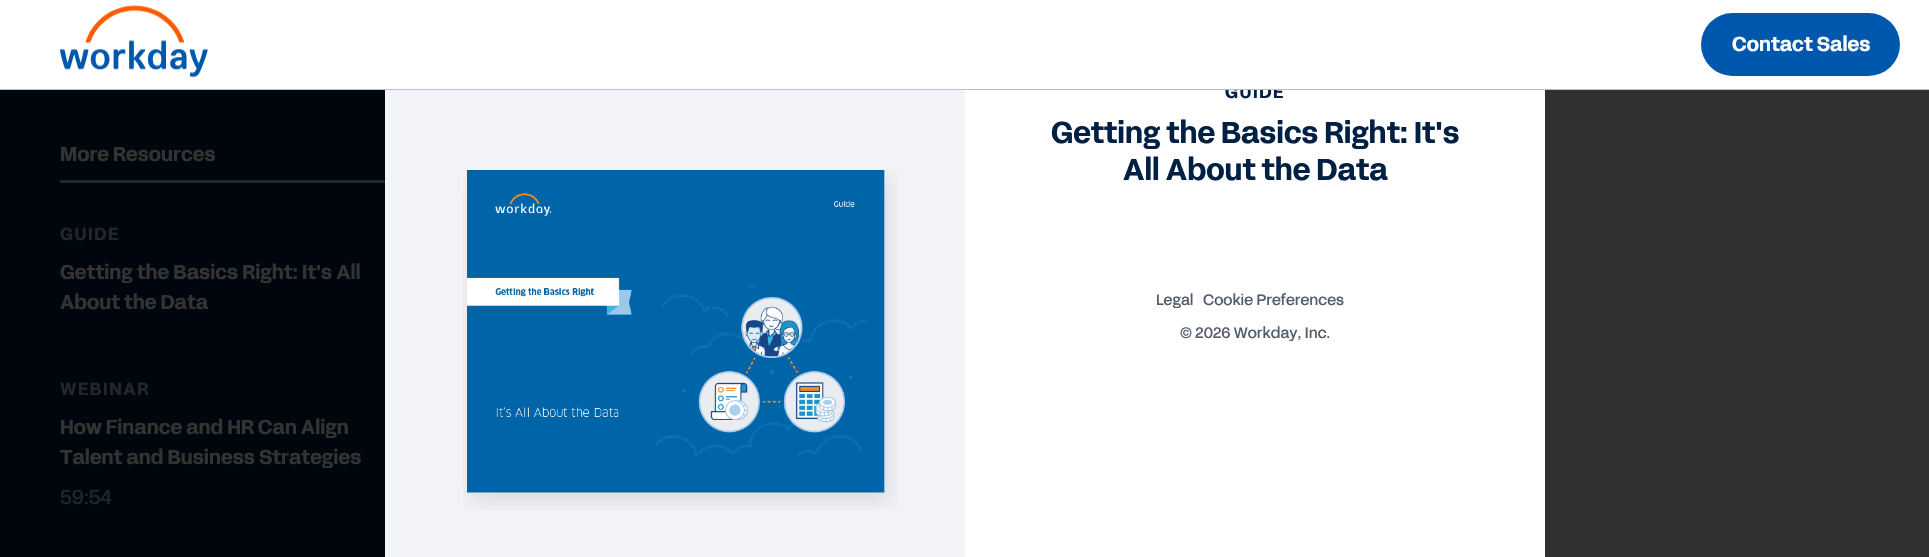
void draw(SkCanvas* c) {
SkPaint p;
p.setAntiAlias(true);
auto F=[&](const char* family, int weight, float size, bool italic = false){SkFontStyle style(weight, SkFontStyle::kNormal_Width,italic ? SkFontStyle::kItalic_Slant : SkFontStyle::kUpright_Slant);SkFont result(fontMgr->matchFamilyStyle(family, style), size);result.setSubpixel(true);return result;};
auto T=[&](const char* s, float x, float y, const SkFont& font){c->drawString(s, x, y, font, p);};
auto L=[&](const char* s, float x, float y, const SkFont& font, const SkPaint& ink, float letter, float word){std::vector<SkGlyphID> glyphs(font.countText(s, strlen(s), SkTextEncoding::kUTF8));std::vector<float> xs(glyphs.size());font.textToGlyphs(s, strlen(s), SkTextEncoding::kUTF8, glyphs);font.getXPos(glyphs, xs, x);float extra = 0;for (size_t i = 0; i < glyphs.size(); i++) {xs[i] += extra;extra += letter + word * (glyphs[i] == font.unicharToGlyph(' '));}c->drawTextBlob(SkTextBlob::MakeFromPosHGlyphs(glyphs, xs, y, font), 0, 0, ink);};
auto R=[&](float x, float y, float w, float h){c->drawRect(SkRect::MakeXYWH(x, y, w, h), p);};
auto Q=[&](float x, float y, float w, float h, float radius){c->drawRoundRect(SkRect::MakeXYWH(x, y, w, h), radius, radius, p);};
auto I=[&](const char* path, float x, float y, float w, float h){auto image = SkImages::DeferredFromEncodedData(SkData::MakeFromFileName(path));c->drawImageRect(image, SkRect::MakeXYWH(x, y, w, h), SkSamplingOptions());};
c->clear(0xff00060d);
p.setColor(0xffffffff);
R(965,90,580,467);
auto f1 = F("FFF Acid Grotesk",700,17.5);
p.setColor(0xff022043);
L("GUIDE",1225,98,f1,p,1.5,0);
p.setColor(0xffffffff);
R(0,0,1929,89);
p.setColor(0xffb6c1cc);
R(0,89,1929,1);
I("1.png",60,5,148,73);
p.setColor(0xff0057ae);
Q(1701,13,199,63,31.5);
auto f2 = F("FFF Acid Grotesk",700,20);
p.setColor(0xffffffff);
T("Contact Sales",1732,51,f2);
p.setColor(0xff242729);
R(60,180,330,3);
p.setColor(0xff333333);
T("More Resources",60,161,f2);
p.setColor(0xff242729);
L("GUIDE",60,240,f1,p,1.5,0);
p.setColor(0xff333333);
T("Getting the Basics Right: It's All",60,279,f2);
T("About the Data",60,309,f2);
p.setColor(0xff242729);
L("WEBINAR",60,395,f1,p,1.5,0);
p.setColor(0xff333333);
T("How Finance and HR Can Align",60,434,f2);
T("Talent and Business Strategies",60,464,f2);
auto f3 = F("FFF Acid Grotesk",400,20);
p.setColor(0xff242729);
T("59:54",60,504,f3);
p.setColor(0xff303030);
R(1545,90,384,467);
p.setColor(0xfff1f3f6);
R(385,90,580,467);
I("2.png",463,170,435,340);
auto f4 = F("FFF Acid Grotesk",700,30);
p.setColor(0xff022043);
T("Getting the Basics Right: It's",1051,143,f4);
T("All About the Data",1123,180,f4);
auto f5 = F("FFF Acid Grotesk",400,15);
p.setColor(0xff525d6a);
T("Legal",1156,305,f5);
T("Cookie Preferences",1203,305,f5);
T("© 2026 Workday, Inc.",1180,338,f5);
}
